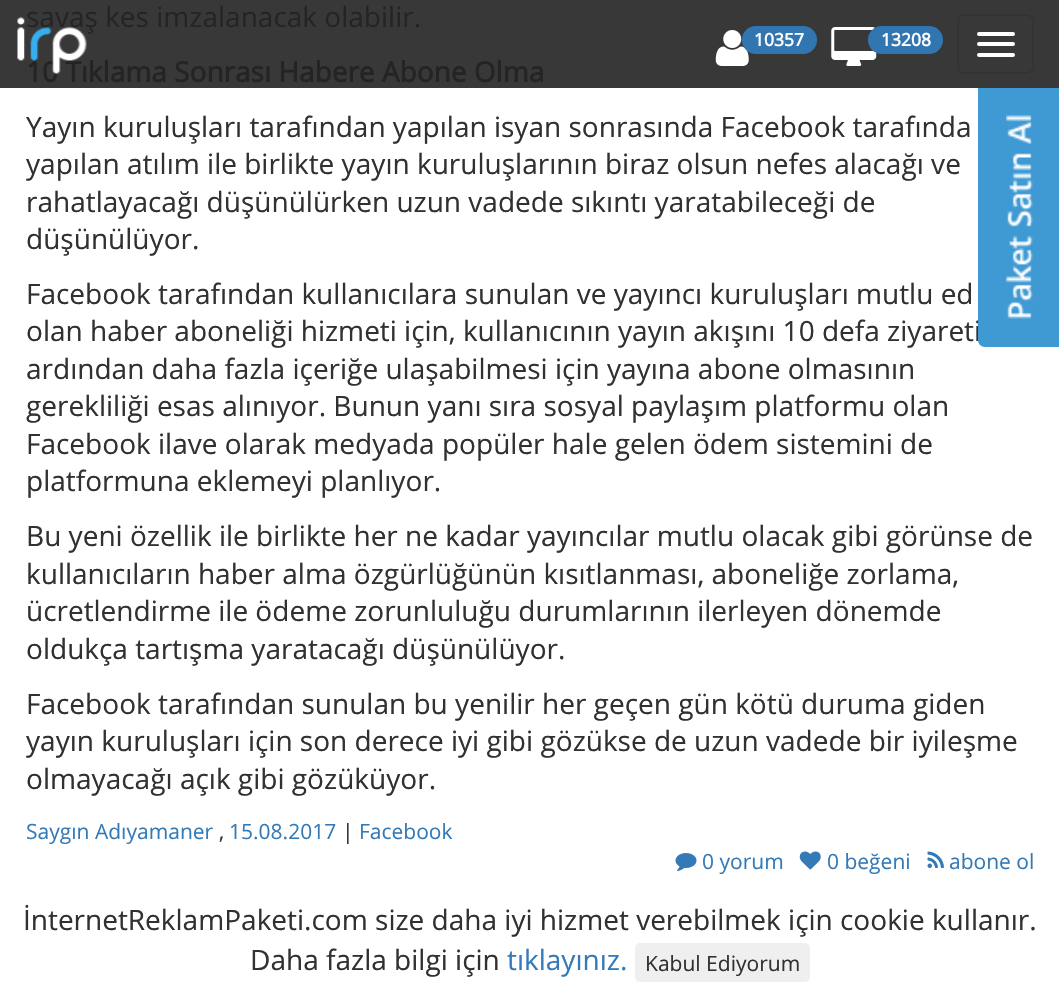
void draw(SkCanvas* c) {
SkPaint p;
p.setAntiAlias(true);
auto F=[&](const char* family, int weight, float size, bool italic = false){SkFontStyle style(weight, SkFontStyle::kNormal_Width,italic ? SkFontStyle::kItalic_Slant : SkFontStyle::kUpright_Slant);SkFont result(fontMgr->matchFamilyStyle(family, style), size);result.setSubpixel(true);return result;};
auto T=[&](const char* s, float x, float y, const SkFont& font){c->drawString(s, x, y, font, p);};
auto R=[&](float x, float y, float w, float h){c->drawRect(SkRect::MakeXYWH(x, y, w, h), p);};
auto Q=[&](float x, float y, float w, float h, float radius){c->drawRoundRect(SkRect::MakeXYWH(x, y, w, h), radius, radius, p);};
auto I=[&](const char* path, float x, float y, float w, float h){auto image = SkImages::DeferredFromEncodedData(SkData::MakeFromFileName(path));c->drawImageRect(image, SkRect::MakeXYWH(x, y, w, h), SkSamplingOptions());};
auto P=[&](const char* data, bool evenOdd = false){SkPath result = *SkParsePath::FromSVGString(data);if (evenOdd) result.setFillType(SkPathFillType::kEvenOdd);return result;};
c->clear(0xffffffff);
p.setColor(0xff383838);
R(0,0,1059,88);
auto f1 = F("Open Sans",400,28);
p.setColor(0xff242424);
T("savaş kes imzalanacak olabilir.",26,27,f1);
auto f2 = F("Open Sans",700,28);
T("10 Tıklama Sonrası Habere Abone Olma",26,82,f2);
p.setColor(0xff313131);
T("Yayın kuruluşları tarafından yapılan isyan sonrasında Facebook tarafında",26,137,f1);
T("yapılan atılım ile birlikte yayın kuruluşlarının biraz olsun nefes alacağı ve",26,174,f1);
T("rahatlayacağı düşünülürken uzun vadede sıkıntı yaratabileceği de",26,212,f1);
T("düşünülüyor.",26,249,f1);
T("Facebook tarafından kullanıcılara sunulan ve yayıncı kuruluşları mutlu ed",26,304,f1);
T("olan haber aboneliği hizmeti için, kullanıcının yayın akışını 10 defa ziyareti",26,341,f1);
T("ardından daha fazla içeriğe ulaşabilmesi için yayına abone olmasının",26,379,f1);
T("gerekliliği esas alınıyor. Bunun yanı sıra sosyal paylaşım platformu olan",26,416,f1);
T("Facebook ilave olarak medyada popüler hale gelen ödem sistemini de",26,454,f1);
T("platformuna eklemeyi planlıyor.",26,491,f1);
T("Bu yeni özellik ile birlikte her ne kadar yayıncılar mutlu olacak gibi görünse de",26,546,f1);
T("kullanıcıların haber alma özgürlüğünün kısıtlanması, aboneliğe zorlama,",26,584,f1);
T("ücretlendirme ile ödeme zorunluluğu durumlarının ilerleyen dönemde",26,621,f1);
T("oldukça tartışma yaratacağı düşünülüyor.",26,659,f1);
T("Facebook tarafından sunulan bu yenilir her geçen gün kötü duruma giden",26,714,f1);
T("yayın kuruluşları için son derece iyi gibi gözükse de uzun vadede bir iyileşme",26,751,f1);
T("olmayacağı açık gibi gözüküyor.",26,789,f1);
auto f3 = F("Open Sans",400,21);
p.setColor(0xff337ab7);
T("Saygın Adıyamaner",26,839,f3);
p.setColor(0xff313131);
T(",",219,839,f3);
p.setColor(0xff337ab7);
T("15.08.2017",229,839,f3);
p.setColor(0xff313131);
T("|",342,839,f3);
p.setColor(0xff337ab7);
T("Facebook",359,839,f3);
I("1.png",675,853,22,18);
T("0 yorum",702,869,f3);
I("2.png",799,851,22,19);
T("0 beğeni",827,869,f3);
I("3.png",927,851,17,17);
T("abone ol",949,869,f3);
I("4.png",17,17,70,57);
I("5.png",715,30,34,36);
p.setColor(0xff3276b1);
Q(742,26,75,28,14);
auto f4 = F("Open Sans",700,17.5);
p.setColor(0xffffffff);
T("10357",754,46,f4);
I("6.png",831,27,46,39);
p.setColor(0xff3276b1);
Q(868,26,75,28,14);
p.setColor(0xffffffff);
T("13208",881,46,f4);
p.setStroke(true);
p.setStrokeWidth(2);
p.setColor(0xff333333);
c->drawRoundRect(SkRect::MakeXYWH(958,15,75,58),6,6,p);
p.setStroke(false);
p.setColor(0xffffffff);
Q(977,32,38,4,2);
Q(977,42,38,4,2);
Q(977,53,38,4,2);
p.setColor(0xff3f99d3);
c->drawPath(P("M978 88h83v259h-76c-4 0-7-3-7-7z"),p);
I("7.png",1006,115,27,204);
p.setColor(0xff313131);
T("İnternetReklamPaketi.com size daha iyi hizmet verebilmek için cookie kullanır.",23,930,f1);
T("Daha fazla bilgi için",250,970,f1);
p.setColor(0xff337ab7);
T("tıklayınız.",507,970,f1);
p.setColor(0xffefefef);
Q(635,943,175,39,5);
p.setColor(0xff313131);
T("Kabul Ediyorum",645,971,f3);
}
